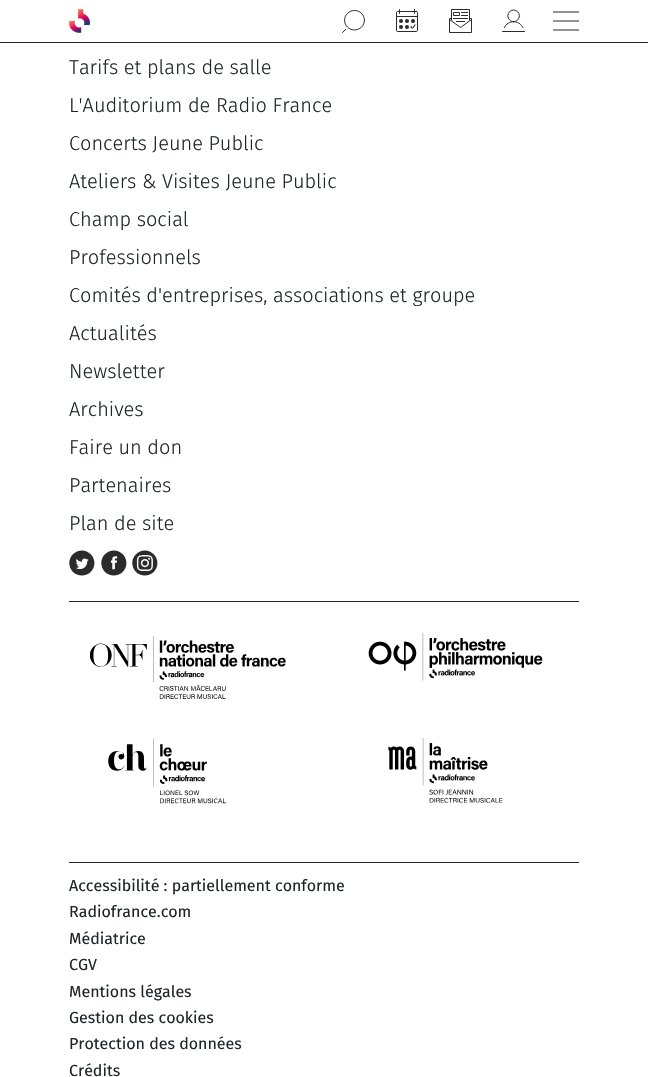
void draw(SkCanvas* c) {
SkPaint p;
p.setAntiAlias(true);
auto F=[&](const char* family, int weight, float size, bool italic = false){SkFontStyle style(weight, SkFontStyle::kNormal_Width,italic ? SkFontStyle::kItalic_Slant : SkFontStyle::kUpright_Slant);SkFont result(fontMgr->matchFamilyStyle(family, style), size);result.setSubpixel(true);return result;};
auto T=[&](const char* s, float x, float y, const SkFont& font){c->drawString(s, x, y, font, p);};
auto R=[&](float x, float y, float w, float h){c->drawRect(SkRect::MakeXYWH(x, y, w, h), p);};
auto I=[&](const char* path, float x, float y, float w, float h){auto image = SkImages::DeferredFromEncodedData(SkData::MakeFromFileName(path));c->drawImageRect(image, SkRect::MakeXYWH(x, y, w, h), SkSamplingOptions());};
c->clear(0xffffffff);
p.setColor(0xff212529);
R(0,42,648,1);
I("1.png",69,9,21,24);
I("2.png",342,10,23,23);
I("3.png",396,9,22,23);
I("4.png",449,9,23,24);
I("5.png",502,9,23,23);
I("6.png",553,11,26,20);
auto f1 = F("Fira Sans",300,20);
T("Tarifs et plans de salle",69,74,f1);
T("L'Auditorium de Radio France",69,112,f1);
T("Concerts Jeune Public",69,150,f1);
T("Ateliers & Visites Jeune Public",69,188,f1);
T("Champ social",69,226,f1);
T("Professionnels",69,264,f1);
T("Comités d'entreprises, associations et groupe",69,302,f1);
T("Actualités",69,340,f1);
T("Newsletter",69,378,f1);
T("Archives",69,416,f1);
T("Faire un don",69,454,f1);
T("Partenaires",69,492,f1);
T("Plan de site",69,530,f1);
I("7.png",69,550,26,26);
I("8.png",101,550,26,26);
I("9.png",132,550,26,26);
R(69,601,510,1);
R(69,862,510,1);
I("10.png",90,635,196,64);
I("11.png",368,632,175,49);
I("12.png",108,739,118,65);
I("13.png",388,738,115,65);
auto f2 = F("Fira Sans",400,16);
T("Accessibilité : partiellement conforme",69,891,f2);
T("Radiofrance.com",69,917,f2);
T("Médiatrice",69,944,f2);
T("CGV",69,970,f2);
T("Mentions légales",69,997,f2);
T("Gestion des cookies",69,1023,f2);
T("Protection des données",69,1049,f2);
T("Crédits",69,1076,f2);
}
